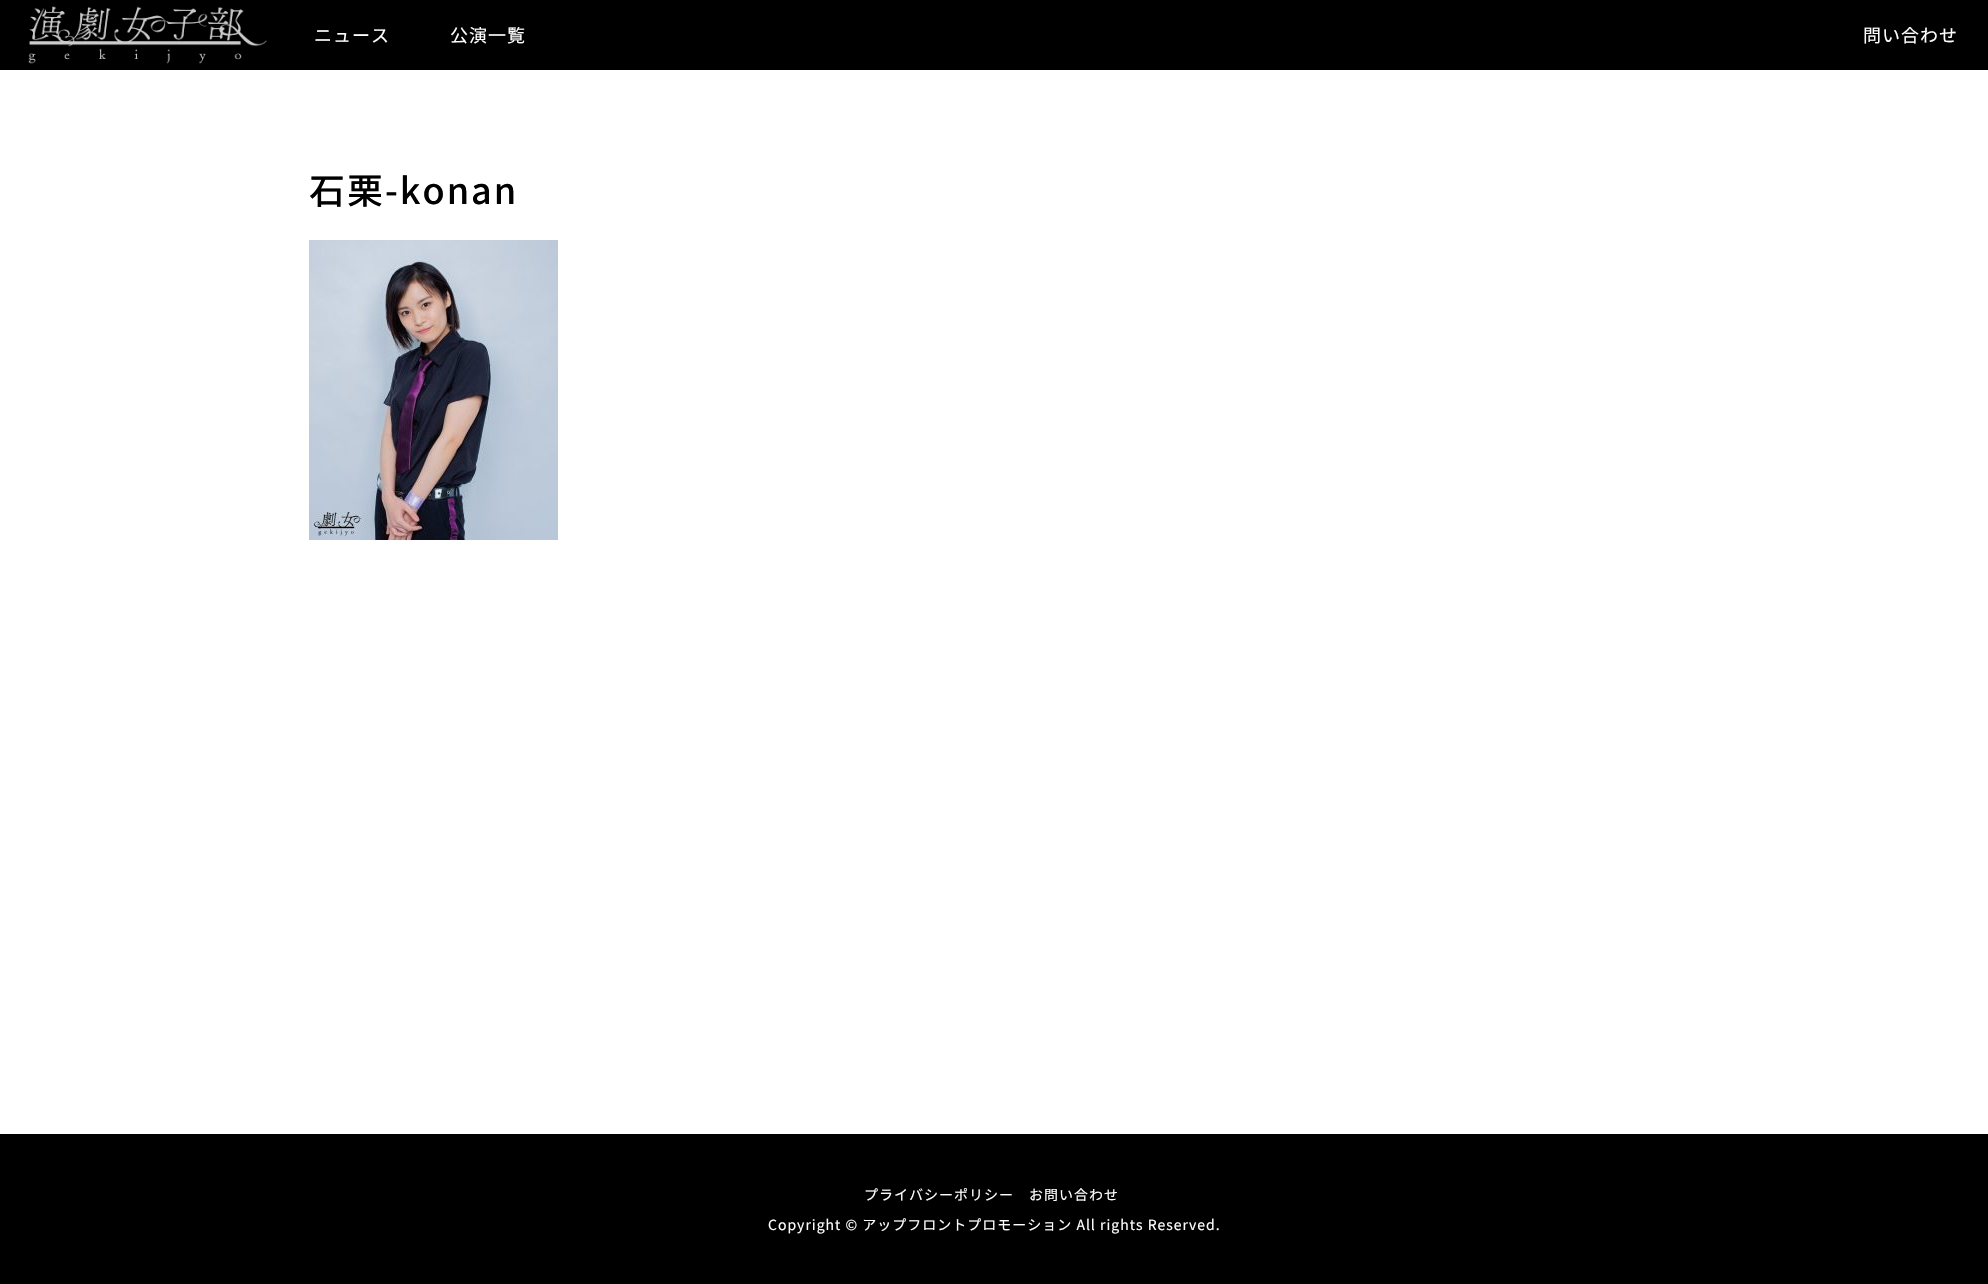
void draw(SkCanvas* c) {
SkPaint p;
p.setAntiAlias(true);
auto F=[&](const char* family, int weight, float size, bool italic = false){SkFontStyle style(weight, SkFontStyle::kNormal_Width,italic ? SkFontStyle::kItalic_Slant : SkFontStyle::kUpright_Slant);SkFont result(fontMgr->matchFamilyStyle(family, style), size);result.setSubpixel(true);return result;};
auto L=[&](const char* s, float x, float y, const SkFont& font, const SkPaint& ink, float letter, float word){std::vector<SkGlyphID> glyphs(font.countText(s, strlen(s), SkTextEncoding::kUTF8));std::vector<float> xs(glyphs.size());font.textToGlyphs(s, strlen(s), SkTextEncoding::kUTF8, glyphs);font.getXPos(glyphs, xs, x);float extra = 0;for (size_t i = 0; i < glyphs.size(); i++) {xs[i] += extra;extra += letter + word * (glyphs[i] == font.unicharToGlyph(' '));}c->drawTextBlob(SkTextBlob::MakeFromPosHGlyphs(glyphs, xs, y, font), 0, 0, ink);};
auto R=[&](float x, float y, float w, float h){c->drawRect(SkRect::MakeXYWH(x, y, w, h), p);};
auto I=[&](const char* path, float x, float y, float w, float h){auto image = SkImages::DeferredFromEncodedData(SkData::MakeFromFileName(path));c->drawImageRect(image, SkRect::MakeXYWH(x, y, w, h), SkSamplingOptions());};
c->clear(0xffffffff);
p.setColor(0xff000000);
R(0,0,1988,70);
I("1.png",28,6,239,58);
auto f1 = F("Noto Sans JP",400,18);
p.setColor(0xffffffff);
L("ニュース",314,42,f1,p,1,0);
L("公演一覧",450,42,f1,p,1,0);
L("問い合わせ",1863,42,f1,p,1,0);
auto f2 = F("Noto Sans JP",500,36);
p.setColor(0xff000000);
L("石栗-konan",309,204,f2,p,2,0);
I("2.png",309,240,249,300);
R(0,1134,1988,150);
auto f3 = F("Noto Sans JP",400,14);
p.setColor(0xffffffff);
L("プライバシーポリシー",864,1200,f3,p,1,0);
L("お問い合わせ",1029,1200,f3,p,1,0);
L("Copyright © アップフロントプロモーション All rights Reserved.",768,1230,f3,p,1,0);
}
